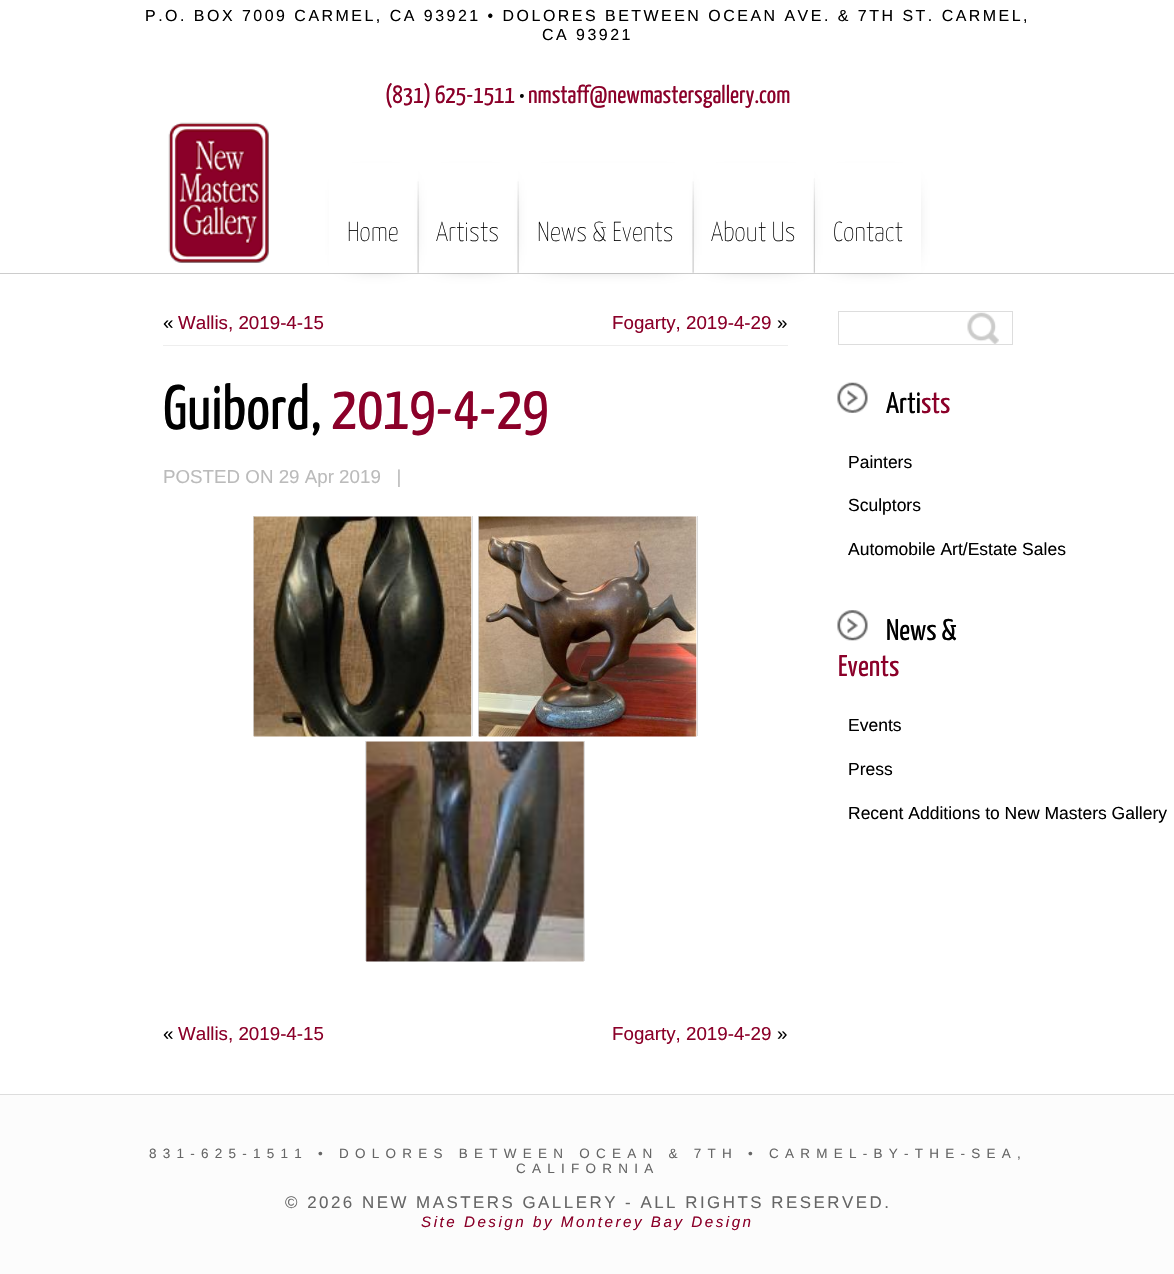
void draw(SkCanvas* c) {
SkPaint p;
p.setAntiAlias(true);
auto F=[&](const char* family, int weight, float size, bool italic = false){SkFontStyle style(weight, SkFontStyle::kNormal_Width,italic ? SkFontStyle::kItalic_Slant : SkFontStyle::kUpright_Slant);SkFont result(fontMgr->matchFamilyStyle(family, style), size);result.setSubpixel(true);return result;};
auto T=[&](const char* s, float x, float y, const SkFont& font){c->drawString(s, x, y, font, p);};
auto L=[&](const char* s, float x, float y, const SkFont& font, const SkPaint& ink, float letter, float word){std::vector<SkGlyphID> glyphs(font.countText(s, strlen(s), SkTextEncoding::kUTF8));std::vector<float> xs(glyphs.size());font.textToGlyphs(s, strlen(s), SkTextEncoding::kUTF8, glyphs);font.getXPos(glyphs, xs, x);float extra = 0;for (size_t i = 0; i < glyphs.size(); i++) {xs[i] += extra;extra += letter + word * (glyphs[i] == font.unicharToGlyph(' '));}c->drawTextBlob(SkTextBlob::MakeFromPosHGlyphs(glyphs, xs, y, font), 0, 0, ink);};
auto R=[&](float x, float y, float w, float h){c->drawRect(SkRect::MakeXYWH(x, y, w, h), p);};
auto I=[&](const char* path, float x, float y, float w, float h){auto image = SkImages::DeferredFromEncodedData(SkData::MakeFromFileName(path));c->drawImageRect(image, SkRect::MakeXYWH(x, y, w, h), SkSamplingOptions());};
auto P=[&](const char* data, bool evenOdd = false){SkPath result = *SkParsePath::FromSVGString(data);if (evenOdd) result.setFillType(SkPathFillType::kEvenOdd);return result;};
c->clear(0xffffffff);
auto f1 = F("Liberation Sans",400,15.95);
p.setColor(0xff000000);
L("P.O. BOX 7009 CARMEL, CA 93921 • DOLORES BETWEEN OCEAN AVE. & 7TH ST. CARMEL,",145,21,f1,p,2.5,0);
L("CA 93921",542,40,f1,p,2.5,0);
auto f2 = F("Yanone Kaffeesatz",400,25);
p.setColor(0xff8b0029);
T("(831) 625-1511",385,103,f2);
p.setColor(0xff000000);
T("•",519,103,f2);
p.setColor(0xff8b0029);
T("nmstaff@newmastersgallery.com",528,103,f2);
I("1.png",168,122,101,141);
p.setColor(0xffcccccc);
R(0,273,1174,1);
c->save();
c->clipPath(P("M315 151h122v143h-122zm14 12h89v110h-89z",true),true);
p.setColor(0xff000000);
p.setMaskFilter(SkMaskFilter::MakeBlur(kNormal_SkBlurStyle, 12.5));
c->drawRect(SkRect::MakeXYWH(354,190,44,65),p);
p.setMaskFilter(nullptr);
c->restore();
auto f3 = F("Yanone Kaffeesatz",200,27.5);
T("Home",347,241,f3);
c->save();
c->clipPath(P("M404 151h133v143h-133zm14 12h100v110h-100z",true),true);
p.setMaskFilter(SkMaskFilter::MakeBlur(kNormal_SkBlurStyle, 12.5));
c->drawRect(SkRect::MakeXYWH(443,190,55,65),p);
p.setMaskFilter(nullptr);
c->restore();
I("2.png",417,181,2,92);
T("Artists",436,241,f3);
c->save();
c->clipPath(P("M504 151h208v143h-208zm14 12h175v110h-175z",true),true);
p.setMaskFilter(SkMaskFilter::MakeBlur(kNormal_SkBlurStyle, 12.5));
c->drawRect(SkRect::MakeXYWH(543,190,130,65),p);
p.setMaskFilter(nullptr);
c->restore();
I("2.png",517,181,2,92);
T("News & Events",537,241,f3);
c->save();
c->clipPath(P("M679 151h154v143h-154zm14 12h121v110h-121z",true),true);
p.setMaskFilter(SkMaskFilter::MakeBlur(kNormal_SkBlurStyle, 12.5));
c->drawRect(SkRect::MakeXYWH(718,190,76,65),p);
p.setMaskFilter(nullptr);
c->restore();
I("2.png",692,181,2,92);
T("About Us",711,241,f3);
c->save();
c->clipPath(P("M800 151h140v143h-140zm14 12h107v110h-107z",true),true);
p.setMaskFilter(SkMaskFilter::MakeBlur(kNormal_SkBlurStyle, 12.5));
c->drawRect(SkRect::MakeXYWH(839,190,62,65),p);
p.setMaskFilter(nullptr);
c->restore();
I("3.png",813,178,2,95);
T("Contact",833,241,f3);
auto f4 = F("Liberation Sans",400,18.75);
T("«",163,329,f4);
p.setColor(0xff8b0029);
T("Wallis, 2019-4-15",178,329,f4);
T("Fogarty, 2019-4-29",612,329,f4);
p.setColor(0xff000000);
T("»",777,329,f4);
p.setColor(0xffeeeeee);
R(163,345,625,1);
auto f5 = F("Yanone Kaffeesatz",400,62.5);
p.setColor(0xff000000);
T("Guibord,",163,429,f5);
p.setColor(0xff8b0029);
T("2019-4-29",331,429,f5);
p.setColor(0xffbbbbbb);
T("POSTED ON 29 Apr 2019   |",163,483,f4);
c->save();
c->clipRect(SkRect::MakeXYWH(253,516,220,220));
p.setStroke(true);
p.setStrokeWidth(1);
p.setColor(0xffdddddd);
c->drawRect(SkRect::MakeXYWH(253.5,421.5,219,409),p);
c->restore();
I("4.png",253,516,219,221);
c->save();
c->clipRect(SkRect::MakeXYWH(478,516,220,220));
c->drawRect(SkRect::MakeXYWH(478.5,509.5,219,234),p);
c->restore();
I("6.png",478,516,219,221);
p.setStroke(false);
p.setColor(0xfffcfcfc);
R(0,1095,1174,179);
p.setColor(0xffdddddd);
R(0,1094,1174,1);
auto f6 = F("Liberation Sans",400,13.5);
p.setColor(0xff666666);
L("831-625-1511 • DOLORES BETWEEN OCEAN & 7TH • CARMEL-BY-THE-SEA,",149,1158,f6,p,6.25,0);
L("CALIFORNIA",516,1173,f6,p,6.25,0);
c->save();
c->clipRect(SkRect::MakeXYWH(365,741,220,220));
p.setStroke(true);
p.setColor(0xffdddddd);
c->drawRect(SkRect::MakeXYWH(365.5,528.5,219,646),p);
c->restore();
I("5.png",366,741,218,221);
p.setStroke(false);
p.setColor(0xff000000);
T("«",163,1040,f4);
p.setColor(0xff8b0029);
T("Wallis, 2019-4-15",178,1040,f4);
T("Fogarty, 2019-4-29",612,1040,f4);
p.setColor(0xff000000);
T("»",777,1040,f4);
I("7.png",967,312,32,32);
p.setStroke(true);
p.setColor(0xffdddddd);
c->drawRect(SkRect::MakeXYWH(838.5,311.5,174,33),p);
I("8.png",837,382,31,31);
auto f7 = F("Yanone Kaffeesatz",400,30);
p.setStroke(false);
p.setColor(0xff000000);
T("Arti",886,413,f7);
p.setColor(0xff8b0029);
T("sts",921,413,f7);
auto f8 = F("Liberation Sans",400,17.5);
p.setColor(0xff000000);
T("Painters",848,468,f8);
T("Sculptors",848,511,f8);
T("Automobile Art/Estate Sales",848,555,f8);
I("9.png",837,610,31,31);
T("News &",886,640,f7);
p.setColor(0xff8b0029);
T("Events",838,676,f7);
p.setColor(0xff000000);
T("Events",848,731,f8);
T("Press",848,775,f8);
T("Recent Additions to New Masters Gallery",848,819,f8);
auto f9 = F("Liberation Sans",400,16.9);
p.setColor(0xff666666);
L("© 2026 NEW MASTERS GALLERY - ALL RIGHTS RESERVED.",285,1208,f9,p,2.5,0);
auto f10 = F("Liberation Sans",400,15.2,true);
p.setColor(0xff8b0029);
L("Site Design by Monterey Bay Design",421,1227,f10,p,2.5,0);
}
